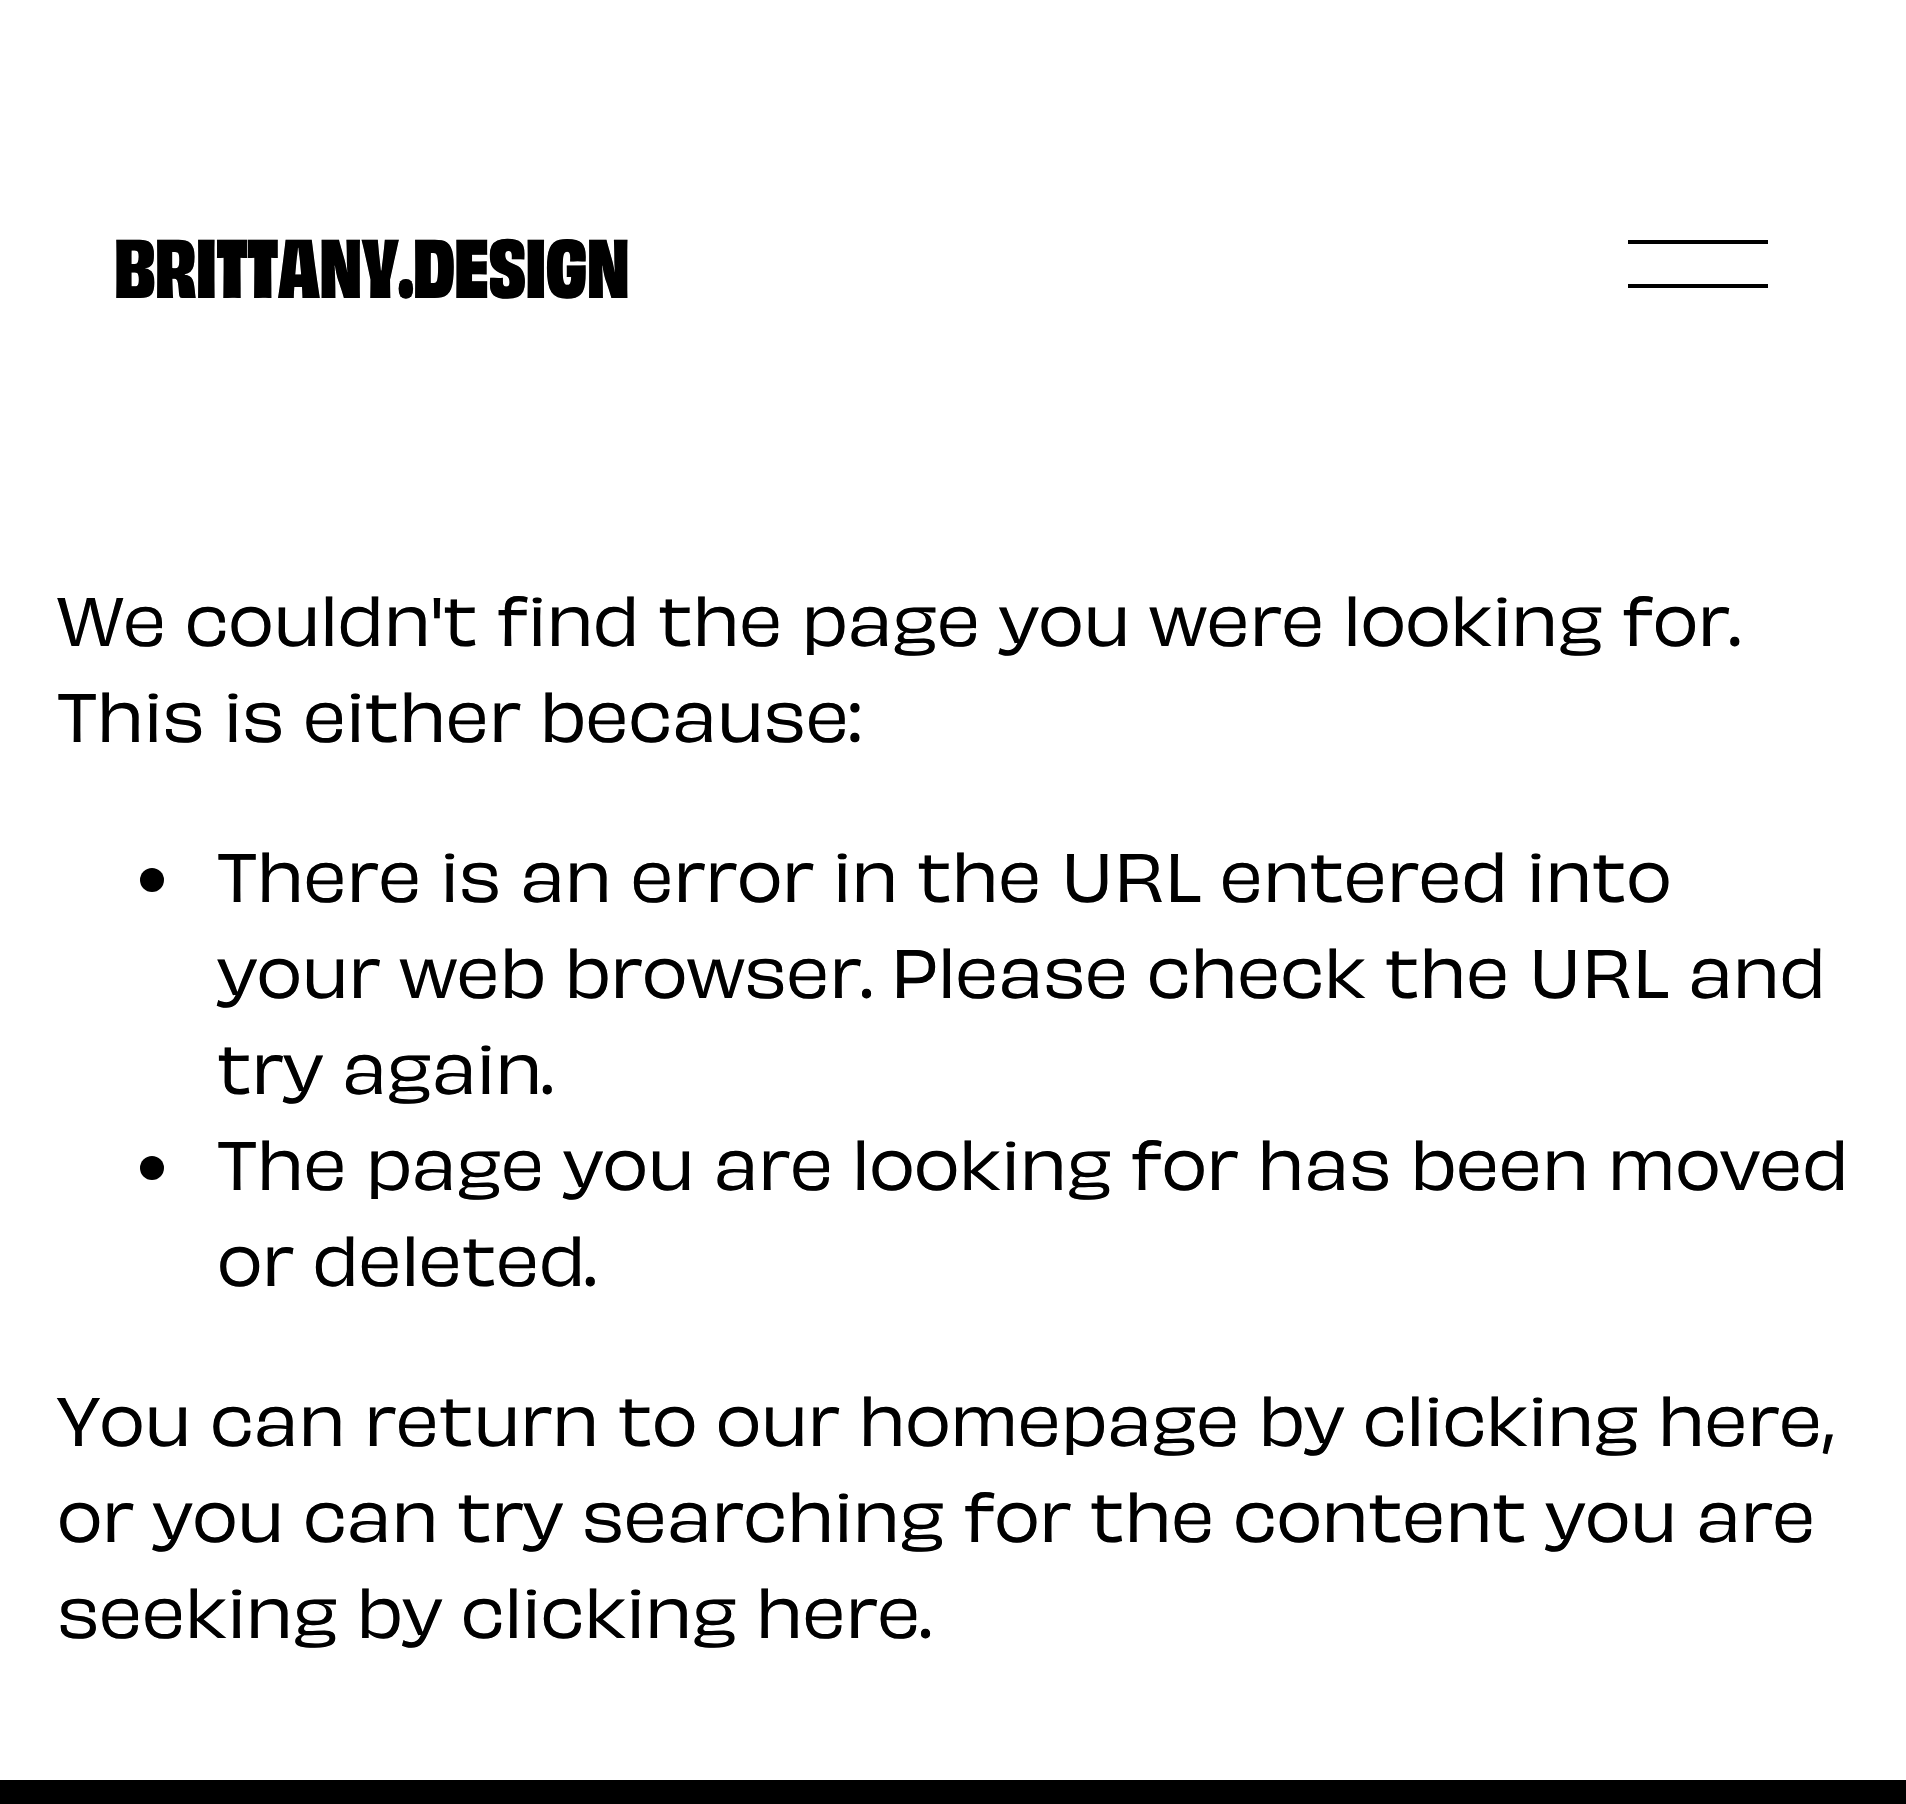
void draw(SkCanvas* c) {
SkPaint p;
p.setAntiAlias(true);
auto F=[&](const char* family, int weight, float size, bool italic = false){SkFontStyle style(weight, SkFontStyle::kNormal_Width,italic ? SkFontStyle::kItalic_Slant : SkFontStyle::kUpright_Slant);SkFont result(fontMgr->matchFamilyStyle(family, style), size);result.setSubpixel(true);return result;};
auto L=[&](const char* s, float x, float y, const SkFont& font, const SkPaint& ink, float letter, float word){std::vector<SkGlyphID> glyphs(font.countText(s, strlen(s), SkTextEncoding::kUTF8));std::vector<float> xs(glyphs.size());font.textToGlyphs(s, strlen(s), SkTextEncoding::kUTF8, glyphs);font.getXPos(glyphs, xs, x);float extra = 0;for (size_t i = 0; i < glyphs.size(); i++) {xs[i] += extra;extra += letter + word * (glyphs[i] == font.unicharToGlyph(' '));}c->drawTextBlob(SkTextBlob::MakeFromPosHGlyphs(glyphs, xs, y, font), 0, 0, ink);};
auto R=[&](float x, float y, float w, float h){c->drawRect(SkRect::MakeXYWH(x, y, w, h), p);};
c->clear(0xffffffff);
auto f1 = F("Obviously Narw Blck",500,77.75);
p.setColor(0xff000000);
L("BRITTANY.DESIGN",114,298,f1,p,-.75,0);
R(1628,240,140,4);
R(1628,284,140,4);
auto f2 = F("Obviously",600,64);
L("We couldn't find the page you were looking for.",57,646,f2,p,-.65,0);
L("This is either because:",57,742,f2,p,-.65,0);
c->drawCircle(152,880,12,p);
L("There is an error in the URL entered into",217,902,f2,p,-.65,0);
L("your web browser. Please check the URL and",217,998,f2,p,-.65,0);
L("try again.",217,1094,f2,p,-.65,0);
c->drawCircle(152,1168,12,p);
L("The page you are looking for has been moved",217,1190,f2,p,-.65,0);
L("or deleted.",217,1286,f2,p,-.65,0);
L("You can return to our homepage by clicking here,",57,1446,f2,p,-.65,0);
L("or you can try searching for the content you are",57,1542,f2,p,-.65,0);
L("seeking by clicking here.",57,1638,f2,p,-.65,0);
R(0,1780,1906,24);
}
